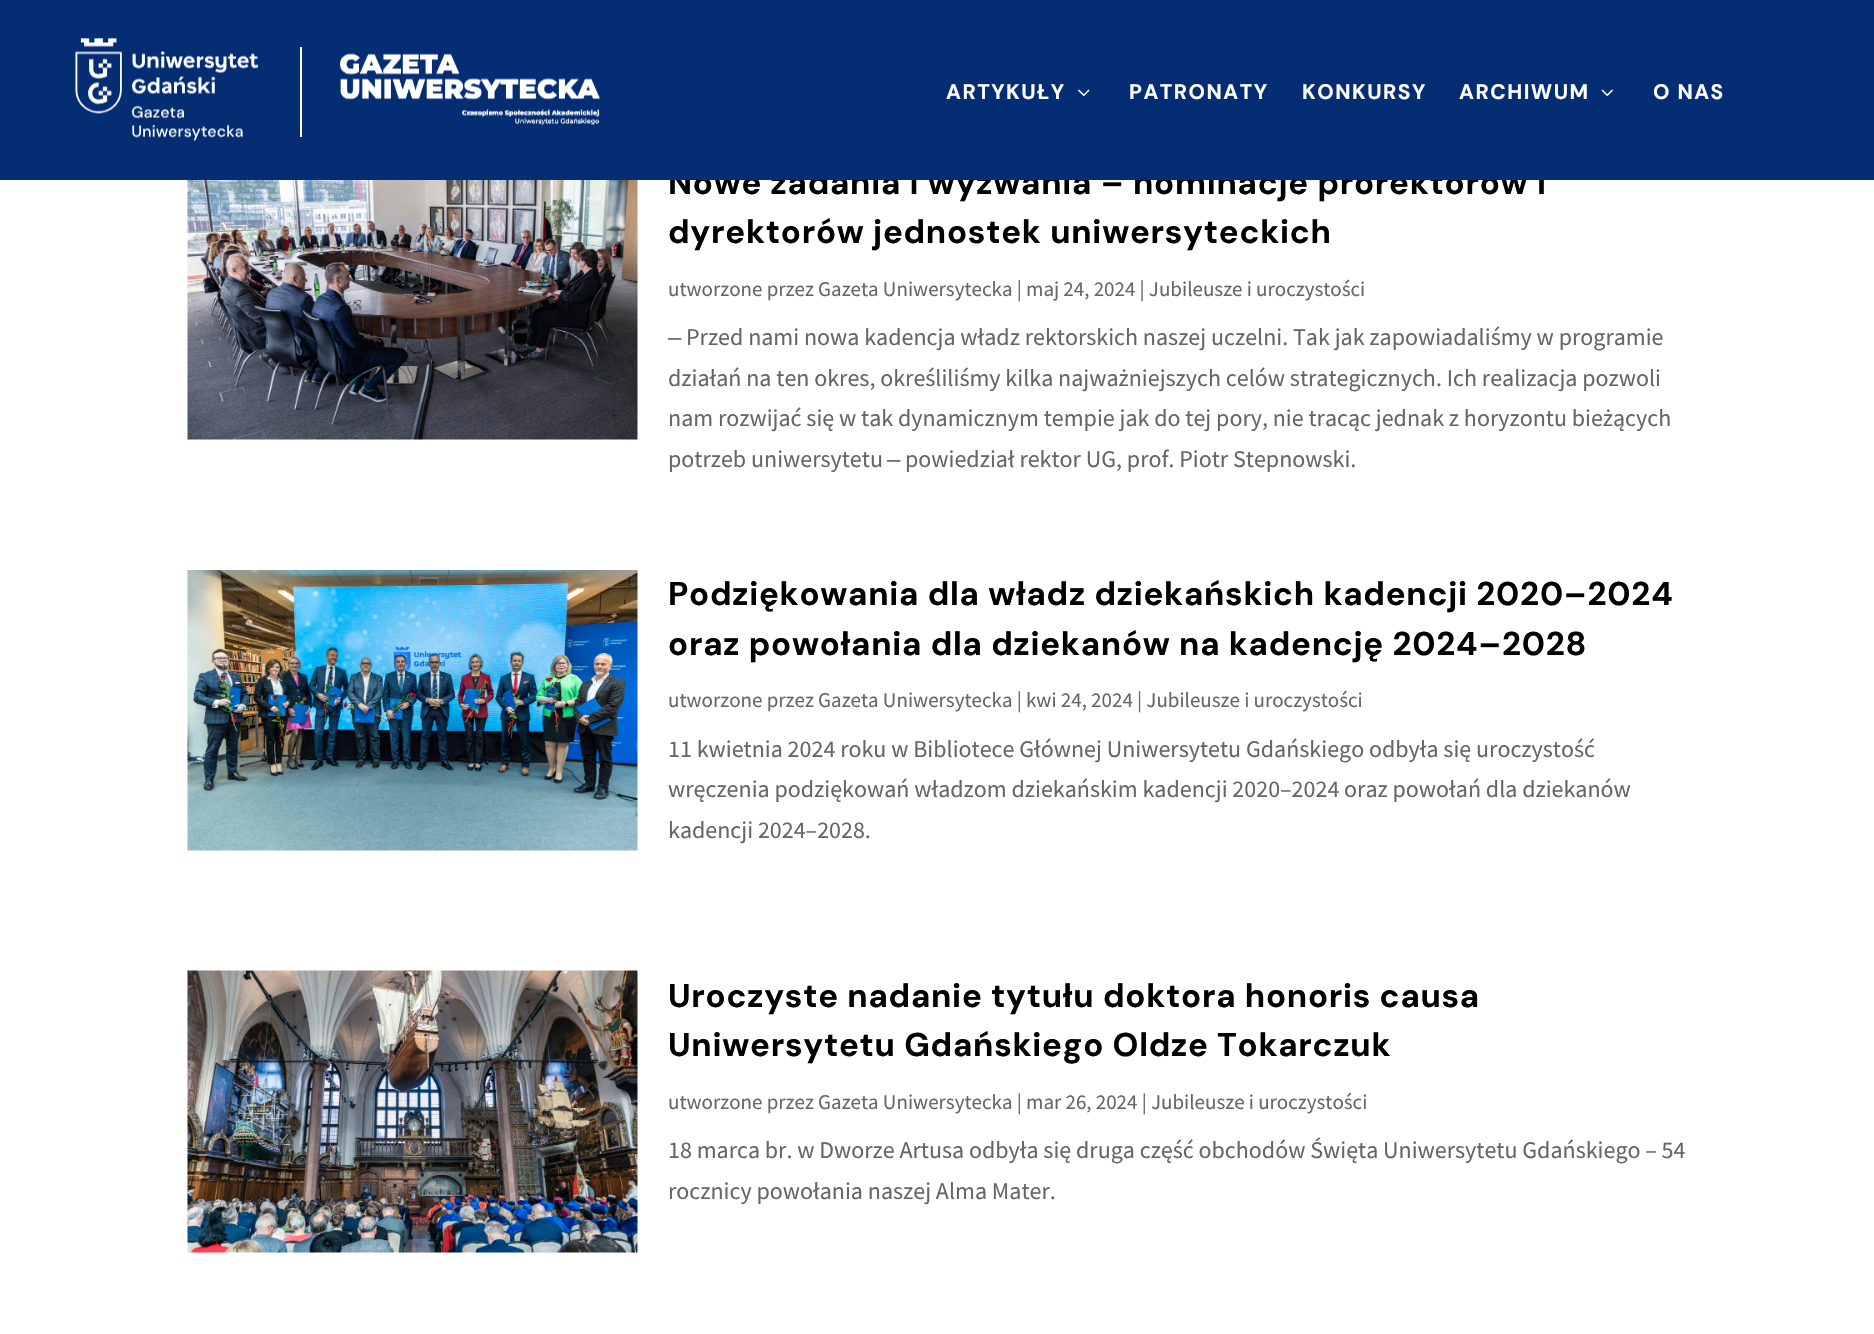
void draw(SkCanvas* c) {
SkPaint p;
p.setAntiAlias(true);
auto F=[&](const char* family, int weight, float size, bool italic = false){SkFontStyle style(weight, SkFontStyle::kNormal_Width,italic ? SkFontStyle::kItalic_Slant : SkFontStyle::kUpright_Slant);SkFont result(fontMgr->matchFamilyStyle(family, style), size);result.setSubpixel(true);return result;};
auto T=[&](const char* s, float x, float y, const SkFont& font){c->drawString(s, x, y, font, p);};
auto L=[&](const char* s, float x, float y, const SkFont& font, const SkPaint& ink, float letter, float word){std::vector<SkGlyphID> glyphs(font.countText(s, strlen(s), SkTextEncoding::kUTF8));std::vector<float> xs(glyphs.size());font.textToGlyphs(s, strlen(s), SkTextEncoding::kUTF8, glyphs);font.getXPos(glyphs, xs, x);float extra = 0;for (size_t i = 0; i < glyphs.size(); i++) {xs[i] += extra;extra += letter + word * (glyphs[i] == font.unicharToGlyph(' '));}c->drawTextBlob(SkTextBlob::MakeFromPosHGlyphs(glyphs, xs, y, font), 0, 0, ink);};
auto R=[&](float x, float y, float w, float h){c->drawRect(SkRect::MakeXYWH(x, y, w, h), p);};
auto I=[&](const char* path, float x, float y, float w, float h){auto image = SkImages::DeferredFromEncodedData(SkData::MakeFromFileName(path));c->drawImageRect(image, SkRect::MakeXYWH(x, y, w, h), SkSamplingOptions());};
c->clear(0xffffffff);
auto f1 = F("DM Sans",700,33);
p.setColor(0xff000000);
L("Nowe zadania i wyzwania – nominacje prorektorów i",668,194,f1,p,.75,0);
p.setColor(0xff052d73);
R(0,0,1874,180);
I("1.png",75,38,184,103);
p.setColor(0xffffffff);
R(300,47,2,90);
I("2.png",340,53,260,72);
auto f2 = F("DM Sans",700,21);
L("ARTYKUŁY",946,99,f2,p,1.5,0);
I("3.png",1078,89,12,7);
L("PATRONATY",1129,99,f2,p,1.5,0);
L("KONKURSY",1302,99,f2,p,1.5,0);
L("ARCHIWUM",1459,99,f2,p,1.5,0);
I("4.png",1601,89,12,7);
L("O NAS",1653,99,f2,p,1.5,0);
I("5.png",187,180,451,260);
p.setColor(0xff000000);
L("dyrektorów jednostek uniwersyteckich",668,243,f1,p,.75,0);
auto f3 = F("Source Sans Pro",400,21);
p.setColor(0xff666666);
T("utworzone przez Gazeta Uniwersytecka | maj 24, 2024 | Jubileusze i uroczystości",668,296,f3);
auto f4 = F("Liberation Sans",400,24);
T("‒",668,345,f4);
auto f5 = F("Source Sans Pro",400,24);
T("Przed nami nowa kadencja władz rektorskich naszej uczelni. Tak jak zapowiadaliśmy w programie",686,345,f5);
T("działań na ten okres, określiliśmy kilka najważniejszych celów strategicznych. Ich realizacja pozwoli",668,386,f5);
T("nam rozwijać się w tak dynamicznym tempie jak do tej pory, nie tracąc jednak z horyzontu bieżących",668,426,f5);
T("potrzeb uniwersytetu",668,467,f5);
T("‒",887,467,f4);
T("powiedział rektor UG, prof. Piotr Stepnowski.",905,467,f5);
I("6.png",187,570,451,281);
p.setColor(0xff000000);
L("Podziękowania dla władz dziekańskich kadencji 2020–2024",668,605,f1,p,.75,0);
L("oraz powołania dla dziekanów na kadencję 2024–2028",668,655,f1,p,.75,0);
p.setColor(0xff666666);
T("utworzone przez Gazeta Uniwersytecka | kwi 24, 2024 | Jubileusze i uroczystości",668,707,f3);
T("11 kwietnia 2024 roku w Bibliotece Głównej Uniwersytetu Gdańskiego odbyła się uroczystość",668,757,f5);
T("wręczenia podziękowań władzom dziekańskim kadencji 2020–2024 oraz powołań dla dziekanów",668,797,f5);
T("kadencji 2024–2028.",668,838,f5);
I("7.png",187,970,451,283);
p.setColor(0xff000000);
L("Uroczyste nadanie tytułu doktora honoris causa",668,1007,f1,p,.75,0);
L("Uniwersytetu Gdańskiego Oldze Tokarczuk",668,1056,f1,p,.75,0);
p.setColor(0xff666666);
T("utworzone przez Gazeta Uniwersytecka | mar 26, 2024 | Jubileusze i uroczystości",668,1109,f3);
T("18 marca br. w Dworze Artusa odbyła się druga część obchodów Święta Uniwersytetu Gdańskiego – 54",668,1158,f5);
T("rocznicy powołania naszej Alma Mater.",668,1199,f5);
}
